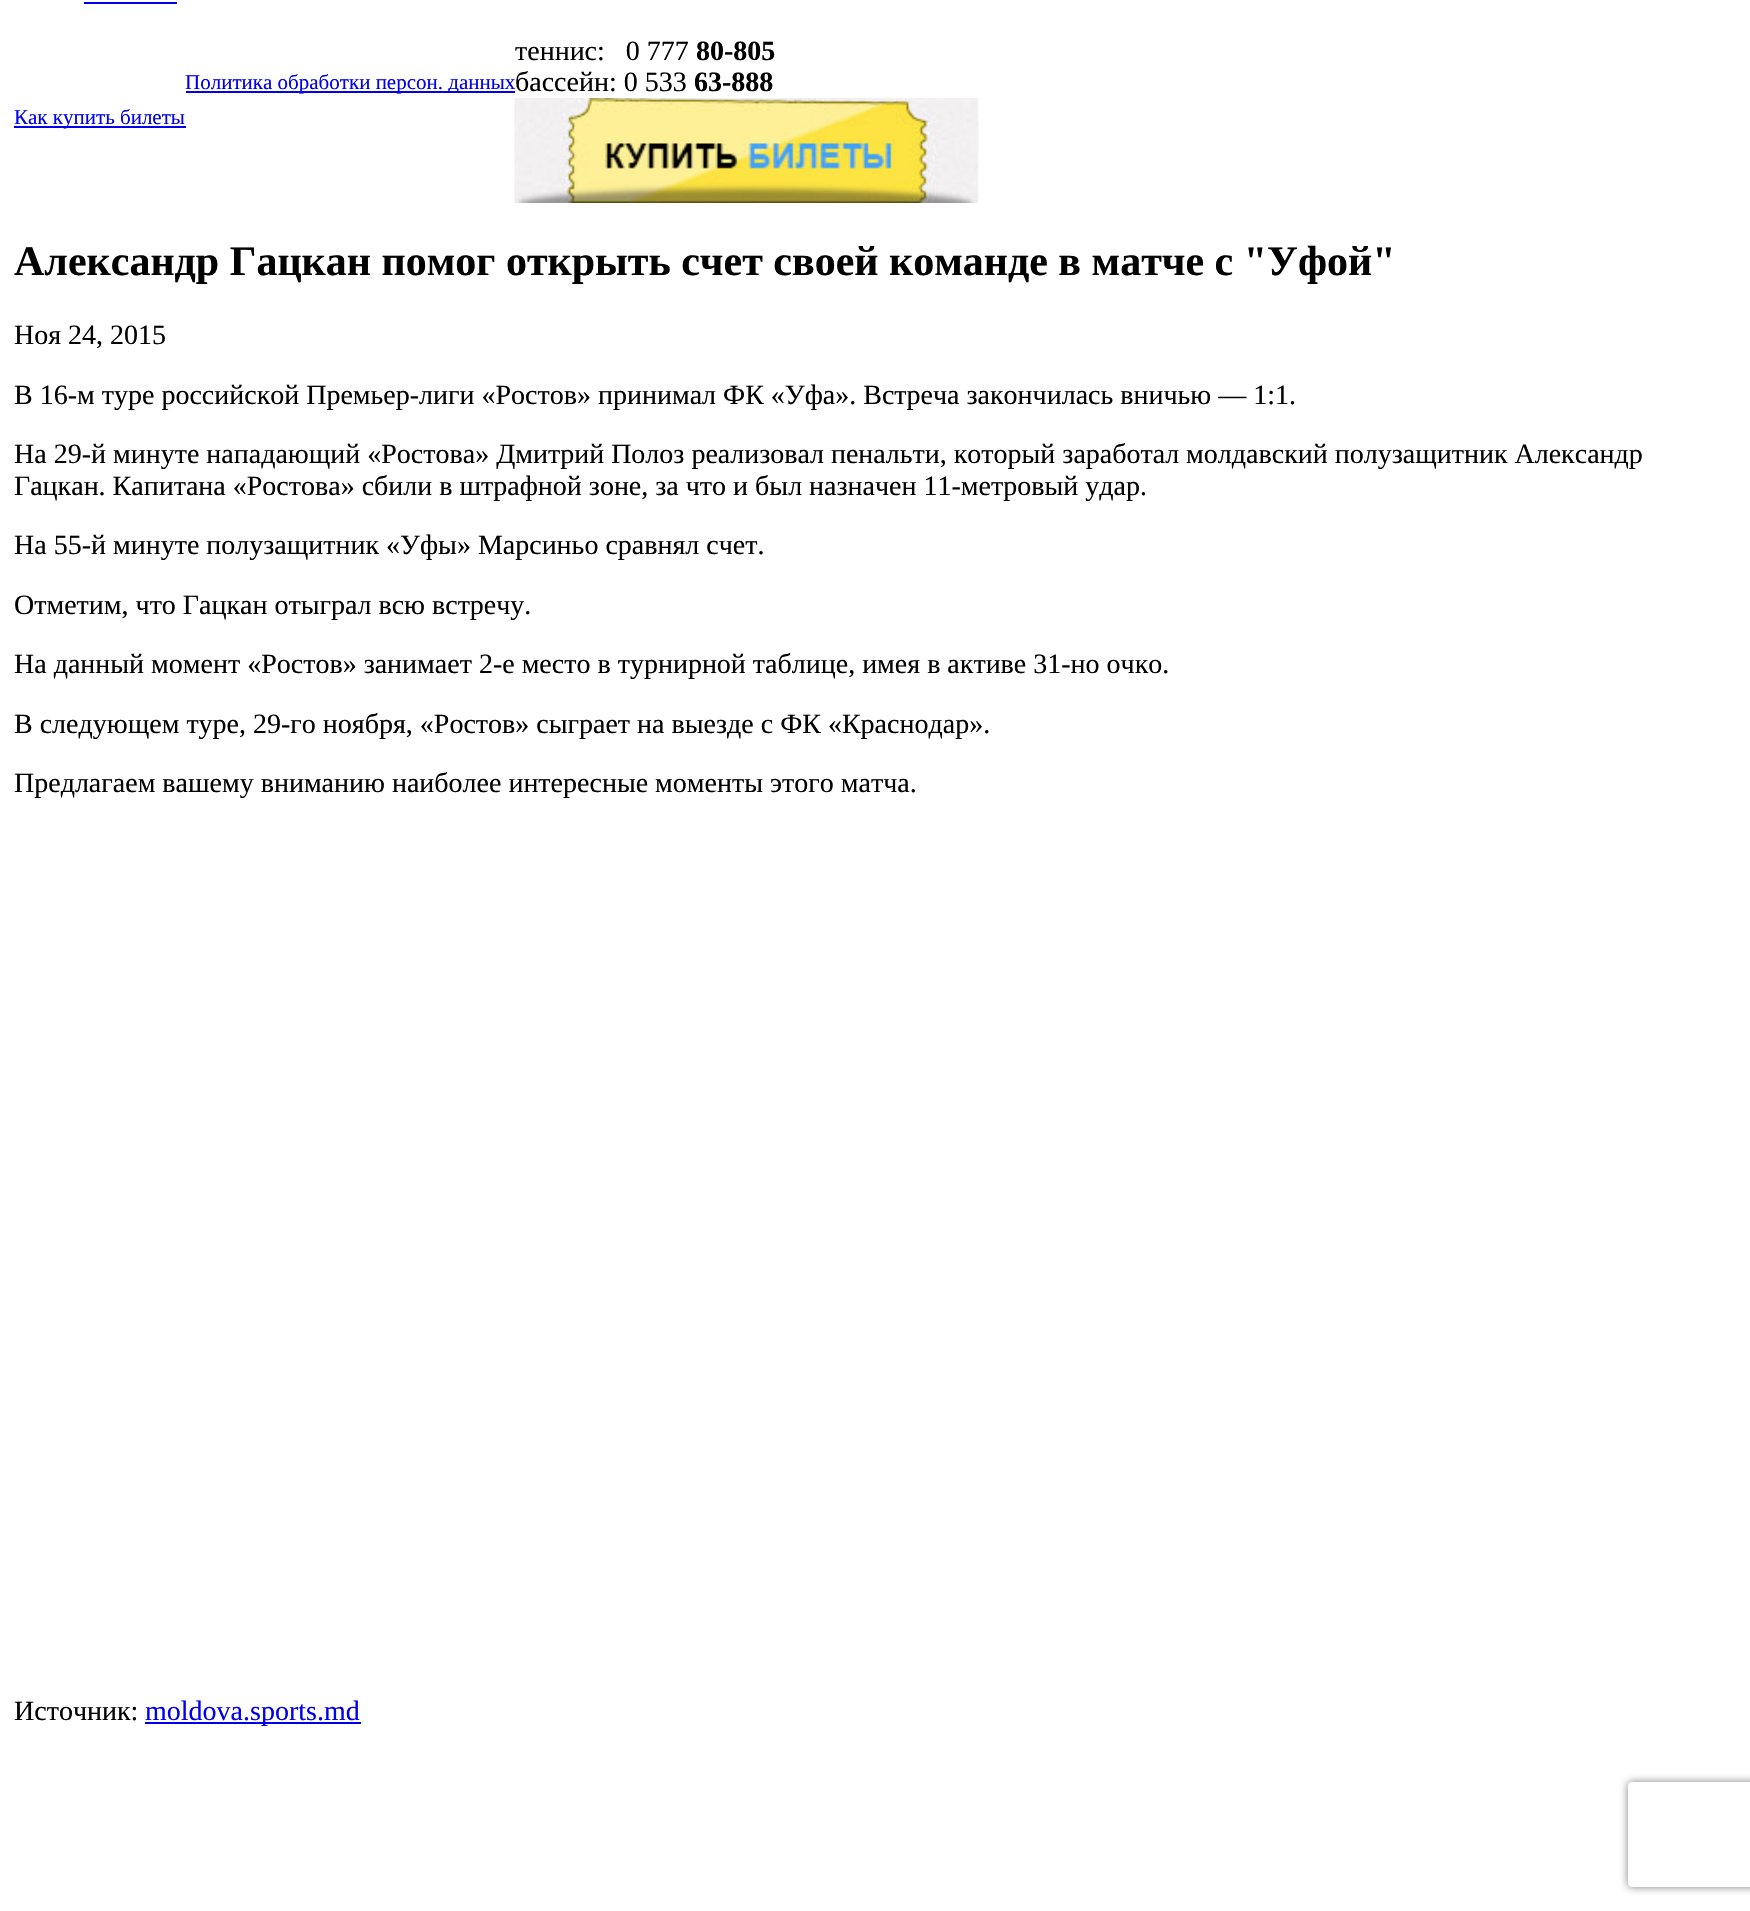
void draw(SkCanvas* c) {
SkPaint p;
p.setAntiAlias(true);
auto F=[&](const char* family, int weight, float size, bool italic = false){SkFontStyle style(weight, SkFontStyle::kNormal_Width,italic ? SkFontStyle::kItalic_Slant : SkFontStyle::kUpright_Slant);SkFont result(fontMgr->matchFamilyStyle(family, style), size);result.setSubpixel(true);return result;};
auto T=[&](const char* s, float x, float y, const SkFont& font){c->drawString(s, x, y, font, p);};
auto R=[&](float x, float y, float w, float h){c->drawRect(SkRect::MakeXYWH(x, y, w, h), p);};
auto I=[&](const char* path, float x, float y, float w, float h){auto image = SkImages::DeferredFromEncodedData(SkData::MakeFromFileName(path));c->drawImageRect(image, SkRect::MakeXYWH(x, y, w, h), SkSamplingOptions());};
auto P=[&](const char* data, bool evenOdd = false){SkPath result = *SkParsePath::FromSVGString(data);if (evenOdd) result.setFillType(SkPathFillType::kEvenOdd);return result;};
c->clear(0xffffffff);
auto f1 = F("Liberation Serif",400,28);
p.setColor(0xff000000);
T("теннис:   0 777",515,60,f1);
auto f2 = F("Liberation Serif",700,28);
T("80-805",696,60,f2);
T("бассейн: 0 533",515,91,f1);
T("63-888",694,91,f2);
p.setColor(0xff0000ee);
R(84,2,93,2);
R(186,91,329,2);
auto f3 = F("Liberation Serif",400,21);
T("Политика обработки персон. данных",185,89,f3);
R(14,126,172,2);
T("Как купить билеты",14,124,f3);
I("1.png",514,98,465,105);
auto f4 = F("Liberation Serif",700,42);
p.setColor(0xff000000);
T("Александр Гацкан помог открыть счет своей команде в матче с \"Уфой\"",14,275,f4);
T("Ноя 24, 2015",14,344,f1);
T("В 16-м туре российской Премьер-лиги «Ростов» принимал ФК «Уфа». Встреча закончилась вничью — 1:1.",14,404,f1);
T("На 29-й минуте нападающий «Ростова» Дмитрий Полоз реализовал пенальти, который заработал молдавский полузащитник Александр",14,463,f1);
T("Гацкан. Капитана «Ростова» сбили в штрафной зоне, за что и был назначен 11-метровый удар.",14,495,f1);
T("На 55-й минуте полузащитник «Уфы» Марсиньо сравнял счет.",14,554,f1);
T("Отметим, что Гацкан отыграл всю встречу.",14,614,f1);
T("На данный момент «Ростов» занимает 2-е место в турнирной таблице, имея в активе 31-но очко.",14,673,f1);
T("В следующем туре, 29-го ноября, «Ростов» сыграет на выезде с ФК «Краснодар».",14,733,f1);
T("Предлагаем вашему вниманию наиболее интересные моменты этого матча.",14,792,f1);
T("Источник:",14,1720,f1);
p.setColor(0xff0000ee);
R(145,1722,216,2);
T("moldova.sports.md",145,1720,f1);
c->save();
c->clipPath(P("M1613 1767h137v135h-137zm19 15h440c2 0 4 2 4 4v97c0 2-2 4-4 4h-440c-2 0-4-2-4-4v-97c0-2 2-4 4-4z",true),true);
p.setColor(0xff808080);
p.setMaskFilter(SkMaskFilter::MakeBlur(kNormal_SkBlurStyle, 4.5));
c->drawRoundRect(SkRect::MakeXYWH(1628,1782,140,105),4,4,p);
p.setMaskFilter(nullptr);
c->restore();
}
